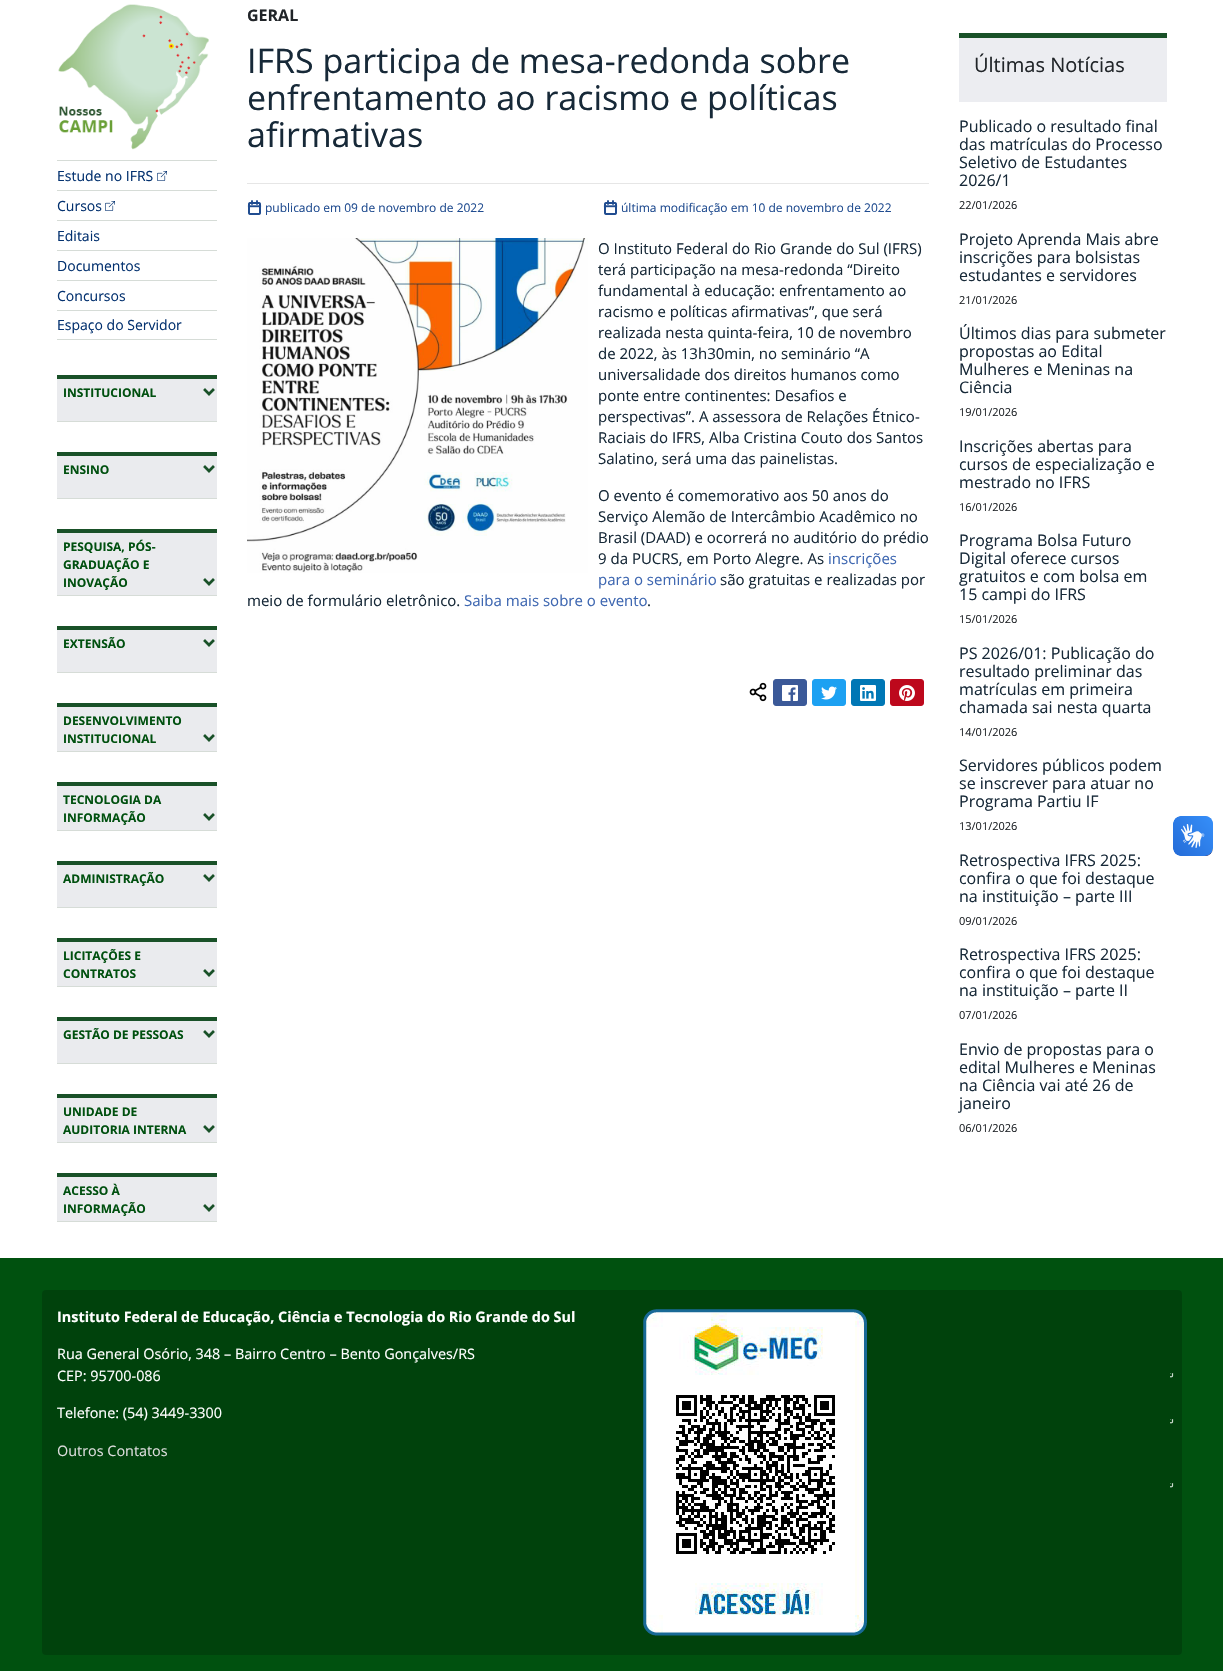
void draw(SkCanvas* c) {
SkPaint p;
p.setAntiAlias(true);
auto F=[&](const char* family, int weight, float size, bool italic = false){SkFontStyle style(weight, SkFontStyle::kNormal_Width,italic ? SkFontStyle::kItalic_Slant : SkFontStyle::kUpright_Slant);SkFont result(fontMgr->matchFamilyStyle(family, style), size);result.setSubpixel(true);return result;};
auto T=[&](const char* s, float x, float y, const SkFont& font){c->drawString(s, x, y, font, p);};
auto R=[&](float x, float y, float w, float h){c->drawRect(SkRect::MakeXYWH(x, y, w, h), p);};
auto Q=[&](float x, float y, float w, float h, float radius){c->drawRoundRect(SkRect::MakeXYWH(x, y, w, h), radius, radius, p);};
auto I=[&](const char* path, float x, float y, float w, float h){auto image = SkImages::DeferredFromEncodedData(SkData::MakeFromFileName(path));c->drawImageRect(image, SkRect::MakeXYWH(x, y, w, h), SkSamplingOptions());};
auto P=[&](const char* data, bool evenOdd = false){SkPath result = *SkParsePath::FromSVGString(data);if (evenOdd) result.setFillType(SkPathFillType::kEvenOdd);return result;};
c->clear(0xffffffff);
I("1.png",58,4,151,146);
p.setColor(0xffd6dcd7);
R(57,160,160,1);
auto f1 = F("Open Sans",400,14);
p.setColor(0xff03316f);
T("Estude no IFRS",57,181,f1);
I("2.png",157,171,10,10);
p.setColor(0xffd6dcd7);
R(57,190,160,1);
p.setColor(0xff03316f);
T("Cursos",57,211,f1);
I("2.png",105,201,10,10);
p.setColor(0xffd6dcd7);
R(57,220,160,1);
p.setColor(0xff03316f);
T("Editais",57,241,f1);
p.setColor(0xffd6dcd7);
R(57,250,160,1);
p.setColor(0xff03316f);
T("Documentos",57,271,f1);
p.setColor(0xffd6dcd7);
R(57,280,160,1);
p.setColor(0xff03316f);
T("Concursos",57,301,f1);
p.setColor(0xffd6dcd7);
R(57,310,160,1);
R(57,339,160,1);
p.setColor(0xff03316f);
T("Espaço do Servidor",57,330,f1);
p.setColor(0xffeaebee);
R(57,379,160,42);
p.setColor(0xff195128);
R(57,375,160,4);
p.setColor(0xffd6dcd7);
R(57,421,160,1);
auto f2 = F("Open Sans",700,12);
p.setColor(0xff00500f);
T("INSTITUCIONAL",63,397,f2);
p.setStroke(true);
p.setStrokeWidth(2.7);
p.setStrokeCap(SkPaint::kSquare_Cap);
p.setColor(0xff195128);
c->drawPath(P("M205 390l4 4l4-4"),p);
p.setStroke(false);
p.setColor(0xffeaebee);
R(57,456,160,42);
p.setColor(0xff195128);
R(57,452,160,4);
p.setColor(0xffd6dcd7);
R(57,498,160,1);
p.setColor(0xff00500f);
T("ENSINO",63,474,f2);
p.setStroke(true);
p.setColor(0xff195128);
c->drawPath(P("M205 467l4 4l4-4"),p);
p.setStroke(false);
p.setColor(0xffeaebee);
R(57,533,160,62);
p.setColor(0xff195128);
R(57,529,160,4);
p.setColor(0xffd6dcd7);
R(57,595,160,1);
p.setColor(0xff00500f);
T("PESQUISA, PÓS-",63,551,f2);
T("GRADUAÇÃO E",63,569,f2);
T("INOVAÇÃO",63,587,f2);
p.setStroke(true);
p.setColor(0xff195128);
c->drawPath(P("M205 580l4 4l4-4"),p);
p.setStroke(false);
p.setColor(0xffeaebee);
R(57,630,160,42);
p.setColor(0xff195128);
R(57,626,160,4);
p.setColor(0xffd6dcd7);
R(57,672,160,1);
p.setColor(0xff00500f);
T("EXTENSÃO",63,648,f2);
p.setStroke(true);
p.setColor(0xff195128);
c->drawPath(P("M205 641l4 4l4-4"),p);
p.setStroke(false);
p.setColor(0xffeaebee);
R(57,707,160,44);
p.setColor(0xff195128);
R(57,703,160,4);
p.setColor(0xffd6dcd7);
R(57,751,160,1);
p.setColor(0xff00500f);
T("DESENVOLVIMENTO",63,725,f2);
T("INSTITUCIONAL",63,743,f2);
p.setStroke(true);
p.setColor(0xff195128);
c->drawPath(P("M205 736l4 4l4-4"),p);
p.setStroke(false);
p.setColor(0xffeaebee);
R(57,786,160,44);
p.setColor(0xff195128);
R(57,782,160,4);
p.setColor(0xffd6dcd7);
R(57,830,160,1);
p.setColor(0xff00500f);
T("TECNOLOGIA DA",63,804,f2);
T("INFORMAÇÃO",63,822,f2);
p.setStroke(true);
p.setColor(0xff195128);
c->drawPath(P("M205 815l4 4l4-4"),p);
p.setStroke(false);
p.setColor(0xffeaebee);
R(57,865,160,42);
p.setColor(0xff195128);
R(57,861,160,4);
p.setColor(0xffd6dcd7);
R(57,907,160,1);
p.setColor(0xff00500f);
T("ADMINISTRAÇÃO",63,883,f2);
p.setStroke(true);
p.setColor(0xff195128);
c->drawPath(P("M205 876l4 4l4-4"),p);
p.setStroke(false);
p.setColor(0xffeaebee);
R(57,942,160,44);
p.setColor(0xff195128);
R(57,938,160,4);
p.setColor(0xffd6dcd7);
R(57,986,160,1);
p.setColor(0xff00500f);
T("LICITAÇÕES E",63,960,f2);
T("CONTRATOS",63,978,f2);
p.setStroke(true);
p.setColor(0xff195128);
c->drawPath(P("M205 971l4 4l4-4"),p);
p.setStroke(false);
p.setColor(0xffeaebee);
R(57,1021,160,42);
p.setColor(0xff195128);
R(57,1017,160,4);
p.setColor(0xffd6dcd7);
R(57,1063,160,1);
p.setColor(0xff00500f);
T("GESTÃO DE PESSOAS",63,1039,f2);
p.setStroke(true);
p.setColor(0xff195128);
c->drawPath(P("M205 1032l4 4l4-4"),p);
p.setStroke(false);
p.setColor(0xffeaebee);
R(57,1098,160,44);
p.setColor(0xff195128);
R(57,1094,160,4);
p.setColor(0xffd6dcd7);
R(57,1142,160,1);
p.setColor(0xff00500f);
T("UNIDADE DE",63,1116,f2);
T("AUDITORIA INTERNA",63,1134,f2);
p.setStroke(true);
p.setColor(0xff195128);
c->drawPath(P("M205 1127l4 4l4-4"),p);
p.setStroke(false);
p.setColor(0xffeaebee);
R(57,1177,160,44);
p.setColor(0xff195128);
R(57,1173,160,4);
p.setColor(0xffd6dcd7);
R(57,1221,160,1);
p.setColor(0xff00500f);
T("ACESSO À",63,1195,f2);
T("INFORMAÇÃO",63,1213,f2);
p.setStroke(true);
p.setColor(0xff195128);
c->drawPath(P("M205 1206l4 4l4-4"),p);
auto f3 = F("Open Sans",700,16);
p.setStroke(false);
p.setColor(0xff212529);
T("GERAL",247,21,f3);
auto f4 = F("Open Sans",400,34);
p.setColor(0xff172938);
T("IFRS participa de mesa-redonda sobre",247,73,f4);
T("enfrentamento ao racismo e políticas",247,110,f4);
T("afirmativas",247,147,f4);
p.setColor(0xffe6e6e6);
R(247,183,682,1);
I("3.png",247,200,15,15);
auto f5 = F("Open Sans",400,12);
p.setColor(0xff204c90);
T("publicado em 09 de novembro de 2022",265,212,f5);
I("3.png",603,200,15,15);
T("última modificação em 10 de novembro de 2022",621,212,f5);
I("4.png",247,238,341,335);
auto f6 = F("Open Sans",400,15);
p.setColor(0xff172938);
T("O Instituto Federal do Rio Grande do Sul (IFRS)",598,254,f6);
T("terá participação na mesa-redonda “Direito",598,275,f6);
T("fundamental à educação: enfrentamento ao",598,296,f6);
T("racismo e políticas afirmativas”, que será",598,317,f6);
T("realizada nesta quinta-feira, 10 de novembro",598,338,f6);
T("de 2022, às 13h30min, no seminário “A",598,359,f6);
T("universalidade dos direitos humanos como",598,380,f6);
T("ponte entre continentes: Desafios e",598,401,f6);
T("perspectivas”. A assessora de Relações Étnico-",598,422,f6);
T("Raciais do IFRS, Alba Cristina Couto dos Santos",598,443,f6);
T("Salatino, será uma das painelistas.",598,464,f6);
T("O evento é comemorativo aos 50 anos do",598,501,f6);
T("Serviço Alemão de Intercâmbio Acadêmico no",598,522,f6);
T("Brasil (DAAD) e ocorrerá no auditório do prédio",598,543,f6);
T("9 da PUCRS, em Porto Alegre. As",598,564,f6);
p.setColor(0xff3e67b1);
T("inscrições",828,564,f6);
T("para o seminário",598,585,f6);
p.setColor(0xff172938);
T("são gratuitas e realizadas por",720,585,f6);
T("meio de formulário eletrônico.",247,606,f6);
p.setColor(0xff3e67b1);
T("Saiba mais sobre o evento",464,606,f6);
p.setColor(0xff172938);
T(".",647,606,f6);
I("5.png",749,682,18,20);
p.setColor(0xff3b5998);
c->drawRoundRect(SkRect::MakeXYWH(773.5,679.5,33,26),2.5,2.5,p);
p.setStroke(true);
p.setStrokeWidth(1);
p.setStrokeCap(SkPaint::kButt_Cap);
c->drawRoundRect(SkRect::MakeXYWH(773.5,679.5,33,26),2.5,2.5,p);
I("6.png",782,685,16,16);
p.setStroke(false);
p.setColor(0xff1da1f2);
c->drawRoundRect(SkRect::MakeXYWH(812.5,679.5,33,26),2.5,2.5,p);
p.setStroke(true);
c->drawRoundRect(SkRect::MakeXYWH(812.5,679.5,33,26),2.5,2.5,p);
I("7.png",821,686,16,14);
p.setStroke(false);
p.setColor(0xff0077b5);
c->drawRoundRect(SkRect::MakeXYWH(851.5,679.5,33,26),2.5,2.5,p);
p.setStroke(true);
c->drawRoundRect(SkRect::MakeXYWH(851.5,679.5,33,26),2.5,2.5,p);
I("8.png",860,685,16,16);
p.setStroke(false);
p.setColor(0xffbd081c);
c->drawRoundRect(SkRect::MakeXYWH(890.5,679.5,33,26),2.5,2.5,p);
p.setStroke(true);
c->drawRoundRect(SkRect::MakeXYWH(890.5,679.5,33,26),2.5,2.5,p);
I("9.png",899,685,16,16);
p.setStroke(false);
p.setColor(0xffecedf1);
R(959,38,208,64);
p.setColor(0xff195128);
R(959,33,208,5);
auto f7 = F("Open Sans",400,20);
p.setColor(0xff212529);
T("Últimas Notícias",974,72,f7);
auto f8 = F("Open Sans",400,16);
p.setColor(0xff172938);
T("Publicado o resultado final",959,132,f8);
T("das matrículas do Processo",959,150,f8);
T("Seletivo de Estudantes",959,168,f8);
T("2026/1",959,186,f8);
auto f9 = F("Open Sans",400,11);
p.setColor(0xff212529);
T("22/01/2026",959,209,f9);
p.setColor(0xff172938);
T("Projeto Aprenda Mais abre",959,245,f8);
T("inscrições para bolsistas",959,263,f8);
T("estudantes e servidores",959,281,f8);
p.setColor(0xff212529);
T("21/01/2026",959,304,f9);
p.setColor(0xff172938);
T("Últimos dias para submeter",959,339,f8);
T("propostas ao Edital",959,357,f8);
T("Mulheres e Meninas na",959,375,f8);
T("Ciência",959,393,f8);
p.setColor(0xff212529);
T("19/01/2026",959,416,f9);
p.setColor(0xff172938);
T("Inscrições abertas para",959,452,f8);
T("cursos de especialização e",959,470,f8);
T("mestrado no IFRS",959,488,f8);
p.setColor(0xff212529);
T("16/01/2026",959,511,f9);
p.setColor(0xff172938);
T("Programa Bolsa Futuro",959,546,f8);
T("Digital oferece cursos",959,564,f8);
T("gratuitos e com bolsa em",959,582,f8);
T("15 campi do IFRS",959,600,f8);
p.setColor(0xff212529);
T("15/01/2026",959,623,f9);
p.setColor(0xff172938);
T("PS 2026/01: Publicação do",959,659,f8);
T("resultado preliminar das",959,677,f8);
T("matrículas em primeira",959,695,f8);
T("chamada sai nesta quarta",959,713,f8);
p.setColor(0xff212529);
T("14/01/2026",959,736,f9);
p.setColor(0xff172938);
T("Servidores públicos podem",959,771,f8);
T("se inscrever para atuar no",959,789,f8);
T("Programa Partiu IF",959,807,f8);
p.setColor(0xff212529);
T("13/01/2026",959,830,f9);
p.setColor(0xff172938);
T("Retrospectiva IFRS 2025:",959,866,f8);
T("confira o que foi destaque",959,884,f8);
T("na instituição – parte III",959,902,f8);
p.setColor(0xff212529);
T("09/01/2026",959,925,f9);
p.setColor(0xff172938);
T("Retrospectiva IFRS 2025:",959,960,f8);
T("confira o que foi destaque",959,978,f8);
T("na instituição – parte II",959,996,f8);
p.setColor(0xff212529);
T("07/01/2026",959,1019,f9);
p.setColor(0xff172938);
T("Envio de propostas para o",959,1055,f8);
T("edital Mulheres e Meninas",959,1073,f8);
T("na Ciência vai até 26 de",959,1091,f8);
T("janeiro",959,1109,f8);
p.setColor(0xff212529);
T("06/01/2026",959,1132,f9);
I("10.png",1173,816,40,40);
I("11.png",1173,816,40,40);
p.setColor(0xff00510f);
R(0,1258,1223,413);
p.setColor(0xff00420c);
Q(42,1290,1140,365,4);
auto f10 = F("Open Sans",700,14.4);
p.setColor(0xffffffff);
T("Instituto Federal de Educação, Ciência e Tecnologia do Rio Grande do Sul",57,1322,f10);
auto f11 = F("Open Sans",400,14.4);
T("Rua General Osório, 348 – Bairro Centro – Bento Gonçalves/RS",57,1359,f11);
T("CEP: 95700-086",57,1381,f11);
T("Telefone: (54) 3449-3300",57,1418,f11);
p.setColor(0xffdddddd);
T("Outros Contatos",57,1456,f11);
I("12.png",643,1309,224,327);
I("13.png",1170,1373,4,5);
I("13.png",1170,1419,4,5);
I("13.png",1170,1483,4,5);
}
